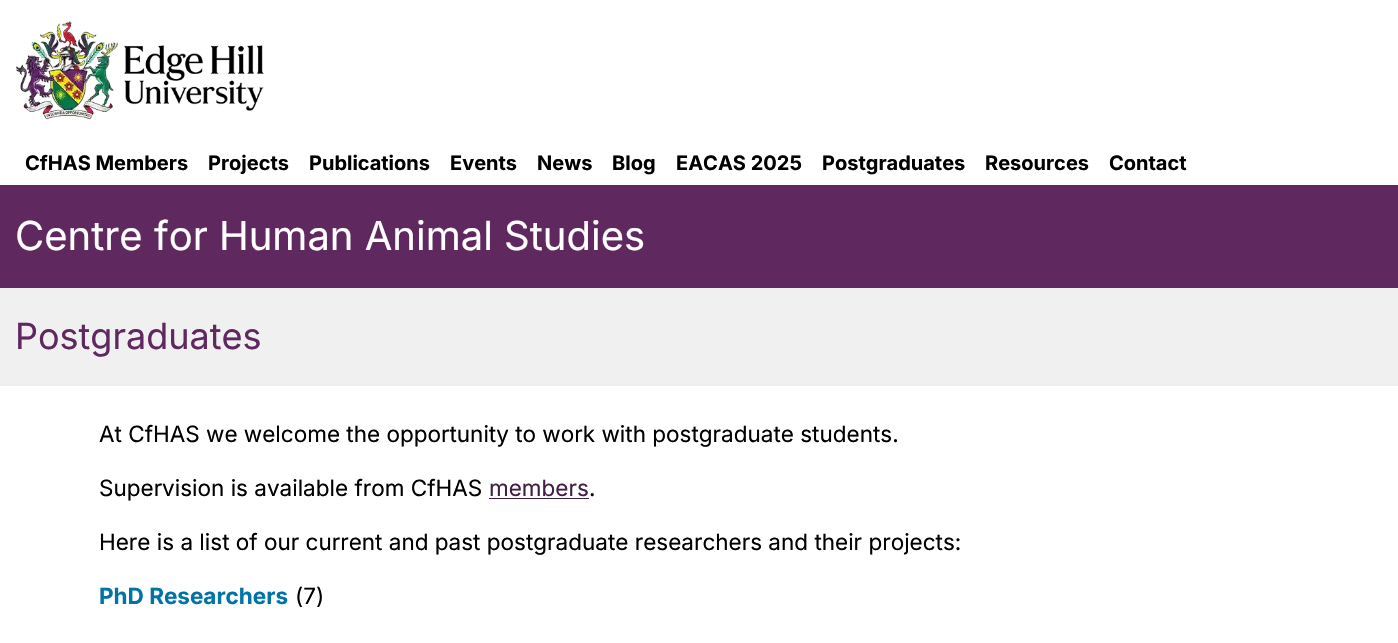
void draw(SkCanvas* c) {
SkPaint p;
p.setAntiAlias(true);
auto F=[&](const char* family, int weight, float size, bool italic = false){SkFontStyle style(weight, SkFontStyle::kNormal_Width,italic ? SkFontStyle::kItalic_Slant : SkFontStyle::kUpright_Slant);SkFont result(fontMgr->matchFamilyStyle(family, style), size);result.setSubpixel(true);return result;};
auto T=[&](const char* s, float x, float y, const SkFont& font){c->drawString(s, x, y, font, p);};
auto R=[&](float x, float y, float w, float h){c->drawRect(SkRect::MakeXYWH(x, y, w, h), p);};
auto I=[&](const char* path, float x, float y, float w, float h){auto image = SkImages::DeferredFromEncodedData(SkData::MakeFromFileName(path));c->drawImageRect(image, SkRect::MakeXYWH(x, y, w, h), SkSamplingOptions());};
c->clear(0xffffffff);
I("1.png",16,21,248,99);
auto f1 = F("Inter",700,20);
p.setColor(0xff000000);
T("CfHAS Members",25,170,f1);
T("Projects",208,170,f1);
T("Publications",309,170,f1);
T("Events",450,170,f1);
T("News",537,170,f1);
T("Blog",612,170,f1);
T("EACAS 2025",676,170,f1);
T("Postgraduates",822,170,f1);
T("Resources",985,170,f1);
T("Contact",1109,170,f1);
p.setColor(0xff5f295f);
R(0,185,1398,103);
auto f2 = F("Inter",400,40);
p.setColor(0xffffffff);
T("Centre for Human Animal Studies",15,250,f2);
p.setColor(0xfff0f0f0);
R(0,288,1398,98);
auto f3 = F("Inter",400,36);
p.setColor(0xff5f295f);
T("Postgraduates",15,349,f3);
auto f4 = F("Inter",400,22.5);
p.setColor(0xff000000);
T("At CfHAS we welcome the opportunity to work with postgraduate students.",99,442,f4);
T("Supervision is available from CfHAS",99,496,f4);
p.setColor(0xff441d44);
T("members",489,496,f4);
R(489,498,100,1);
p.setColor(0xff000000);
T(".",589,496,f4);
T("Here is a list of our current and past postgraduate researchers and their projects:",99,550,f4);
auto f5 = F("Inter",700,22.5);
p.setColor(0xff0073a8);
T("PhD Researchers",99,604,f5);
p.setColor(0xff000000);
T("(7)",295,604,f4);
}
